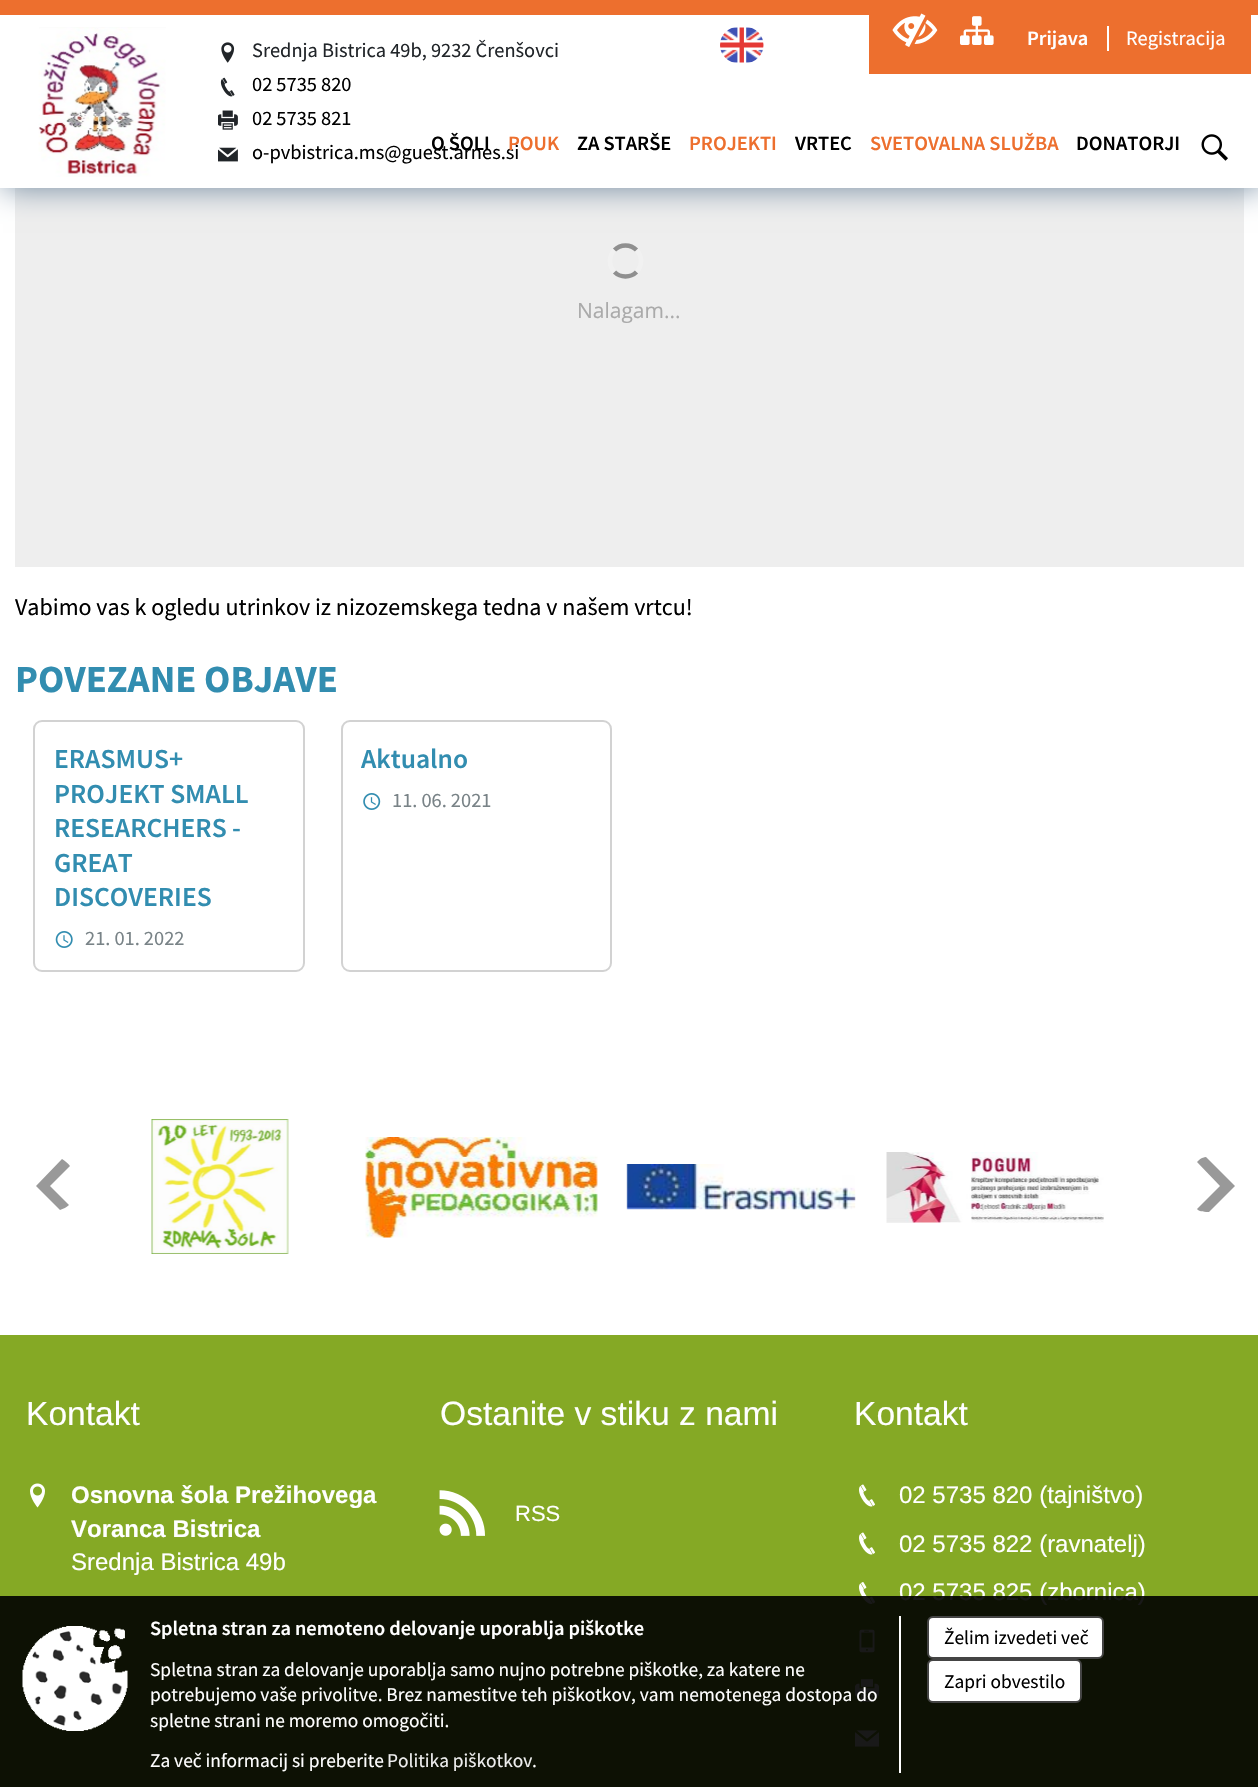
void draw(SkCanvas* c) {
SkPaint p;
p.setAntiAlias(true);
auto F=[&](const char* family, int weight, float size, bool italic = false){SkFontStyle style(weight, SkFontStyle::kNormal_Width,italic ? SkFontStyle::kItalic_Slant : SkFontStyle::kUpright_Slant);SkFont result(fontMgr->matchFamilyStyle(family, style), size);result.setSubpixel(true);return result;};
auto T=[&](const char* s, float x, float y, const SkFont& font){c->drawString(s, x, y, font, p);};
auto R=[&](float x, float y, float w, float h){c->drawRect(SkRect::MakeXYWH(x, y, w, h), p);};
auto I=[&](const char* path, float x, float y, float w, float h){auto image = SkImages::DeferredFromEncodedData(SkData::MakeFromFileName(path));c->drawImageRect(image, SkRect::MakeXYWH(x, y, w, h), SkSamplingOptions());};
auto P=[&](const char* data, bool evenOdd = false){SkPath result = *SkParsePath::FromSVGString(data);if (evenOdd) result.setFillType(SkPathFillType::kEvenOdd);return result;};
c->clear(0xffffffff);
p.setColor(0xffeeeeee);
R(15,188,1229,379);
p.setColor(0xff71899f);
p.setMaskFilter(SkMaskFilter::MakeBlur(kNormal_SkBlurStyle, 15));
c->drawRect(SkRect::MakeXYWH(3,0,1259,188),p);
p.setMaskFilter(nullptr);
p.setColor(0xffffffff);
R(0,15,1258,173);
p.setColor(0xffed6f2e);
R(0,0,1258,15);
I("1.png",720,27,44,36);
R(869,15,382,59);
I("2.png",892,13,46,34);
I("3.png",960,16,34,29);
auto f1 = F("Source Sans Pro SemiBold",600,20.4);
p.setColor(0xffffffff);
T("Prijava",1027,45,f1);
R(1107,26,2,25);
auto f2 = F("Source Sans Pro",400,20.4);
T("Registracija",1126,45,f2);
I("4.png",38,27,128,150);
I("5.png",221,42,14,21);
p.setColor(0xff212529);
T("Srednja Bistrica 49b, 9232 Črenšovci",252,57,f2);
I("6.png",220,77,15,20);
p.setColor(0xff000000);
T("02 5735 820",252,91,f2);
I("7.png",218,110,20,20);
T("02 5735 821",252,125,f2);
I("8.png",218,147,20,15);
T("o-pvbistrica.ms@guest.arnes.si",252,159,f2);
T("O ŠOLI",431,150,f1);
p.setColor(0xffed6f2e);
T("POUK",508,150,f1);
p.setColor(0xff000000);
T("ZA STARŠE",577,150,f1);
p.setColor(0xffed6f2e);
T("PROJEKTI",689,150,f1);
p.setColor(0xff000000);
T("VRTEC",795,150,f1);
p.setColor(0xffed6f2e);
T("SVETOVALNA SLUŽBA",870,150,f1);
p.setColor(0xff000000);
T("DONATORJI",1076,150,f1);
I("9.png",1201,134,27,27);
p.setStroke(true);
p.setStrokeWidth(4.5);
p.setColor(0xff8f8f8f);
c->drawPath(P("M614.5 250c6-6 16-6 22 0"),p);
p.setColor(0x33ffffff);
c->drawPath(P("M636.5 250c6 6 6 16 0 22"),p);
p.setColor(0xff8f8f8f);
c->drawPath(P("M636.5 272c-6 6-16 6-22 0"),p);
p.setColor(0x33ffffff);
c->drawPath(P("M614.5 272c-6-6-6-16 0-22"),p);
auto f3 = F("Open Sans",400,21);
p.setStroke(false);
p.setColor(0xffaaaaaa);
T("Nalagam...",577,318,f3);
auto f4 = F("Source Sans Pro",400,24);
p.setColor(0xff000000);
T("Vabimo vas k ogledu utrinkov iz nizozemskega tedna v našem vrtcu!",15,615,f4);
auto f5 = F("Source Sans Pro",700,38.5);
p.setColor(0xff328db0);
T("POVEZANE OBJAVE",15,692,f5);
p.setStroke(true);
p.setStrokeWidth(2);
p.setColor(0xffd2d2d2);
c->drawRoundRect(SkRect::MakeXYWH(34,721,270,250),8,8,p);
auto f6 = F("Source Sans Pro SemiBold",600,27.5);
p.setStroke(false);
p.setColor(0xff328db0);
T("ERASMUS+",54,768,f6);
T("PROJEKT SMALL",54,803,f6);
T("RESEARCHERS -",54,837,f6);
T("GREAT",54,872,f6);
T("DISCOVERIES",54,906,f6);
I("10.png",55,931,18,17);
p.setColor(0xff798387);
T("21. 01. 2022",85,945,f2);
p.setStroke(true);
p.setColor(0xffd2d2d2);
c->drawRoundRect(SkRect::MakeXYWH(342,721,269,250),8,8,p);
p.setStroke(false);
p.setColor(0xff328db0);
T("Aktualno",361,768,f6);
I("11.png",363,793,18,17);
p.setColor(0xff798387);
T("11. 06. 2021",392,807,f2);
p.setColor(0xff999999);
c->drawPath(P("M70 1166l-20 20l19 19c-2 2-6 4-9 5l-24-24l26-27c3 2 6 4 8 7z"),p);
I("12.png",151,1119,138,135);
I("13.png",365,1137,233,101);
I("14.png",626,1164,230,46);
I("15.png",886,1152,218,71);
c->drawPath(P("M1197 1209c2 3 9 3 12 3l26-26l-29-29c-5 1-5 1-9 5l23 24z"),p);
p.setColor(0xff85a925);
R(0,1335,1258,452);
auto f7 = F("Liberation Sans",400,33.6);
p.setColor(0xffffffff);
T("Kontakt",26,1425,f7);
I("16.png",30,1483,15,25);
auto f8 = F("Liberation Sans",700,24);
T("Osnovna šola Prežihovega",71,1503,f8);
T("Voranca Bistrica",71,1537,f8);
auto f9 = F("Liberation Sans",400,24);
T("Srednja Bistrica 49b",71,1570,f9);
T("Ostanite v stiku z nami",440,1425,f7);
I("17.png",439,1490,46,46);
auto f10 = F("Liberation Sans",400,22);
T("RSS",515,1521,f10);
T("Kontakt",854,1425,f7);
I("18.png",859,1484,16,23);
T("02 5735 820 (tajništvo)",899,1503,f9);
I("18.png",859,1532,16,23);
T("02 5735 822 (ravnatelj)",899,1552,f9);
I("19.png",859,1582,16,22);
T("02 5735 825 (zbornica)",899,1600,f9);
I("20.png",859,1629,16,24);
I("21.png",855,1679,24,23);
I("22.png",855,1730,24,17);
p.setColor(0xe6000000);
R(0,1596,1258,191);
I("23.png",22,1626,106,105);
p.setColor(0xffffffff);
R(899,1616,2,157);
auto f11 = F("Source Sans Pro SemiBold",600,20.35);
T("Spletna stran za nemoteno delovanje uporablja piškotke",150,1635,f11);
auto f12 = F("Source Sans Pro",400,19.4);
T("Spletna stran za delovanje uporablja samo nujno potrebne piškotke, za katere ne",150,1676,f12);
T("potrebujemo vaše privolitve. Brez namestitve teh piškotkov, vam nemotenega dostopa do",150,1701,f12);
T("spletne strani ne moremo omogočiti.",150,1727,f12);
T("Za več informacij si preberite",150,1767,f12);
p.setColor(0xffeeeeee);
T("Politika piškotkov",387,1767,f12);
p.setColor(0xffffffff);
T(".",532,1767,f12);
c->drawRoundRect(SkRect::MakeXYWH(928,1617,175,41),5,5,p);
p.setStroke(true);
p.setColor(0xff444444);
c->drawRoundRect(SkRect::MakeXYWH(928,1617,175,41),5,5,p);
p.setStroke(false);
p.setColor(0xff000000);
T("Želim izvedeti več",944,1644,f12);
p.setColor(0xffffffff);
c->drawRoundRect(SkRect::MakeXYWH(928,1660,153,42),5,5,p);
p.setStroke(true);
p.setColor(0xff444444);
c->drawRoundRect(SkRect::MakeXYWH(928,1660,153,42),5,5,p);
p.setStroke(false);
p.setColor(0xff000000);
T("Zapri obvestilo",944,1688,f12);
}
